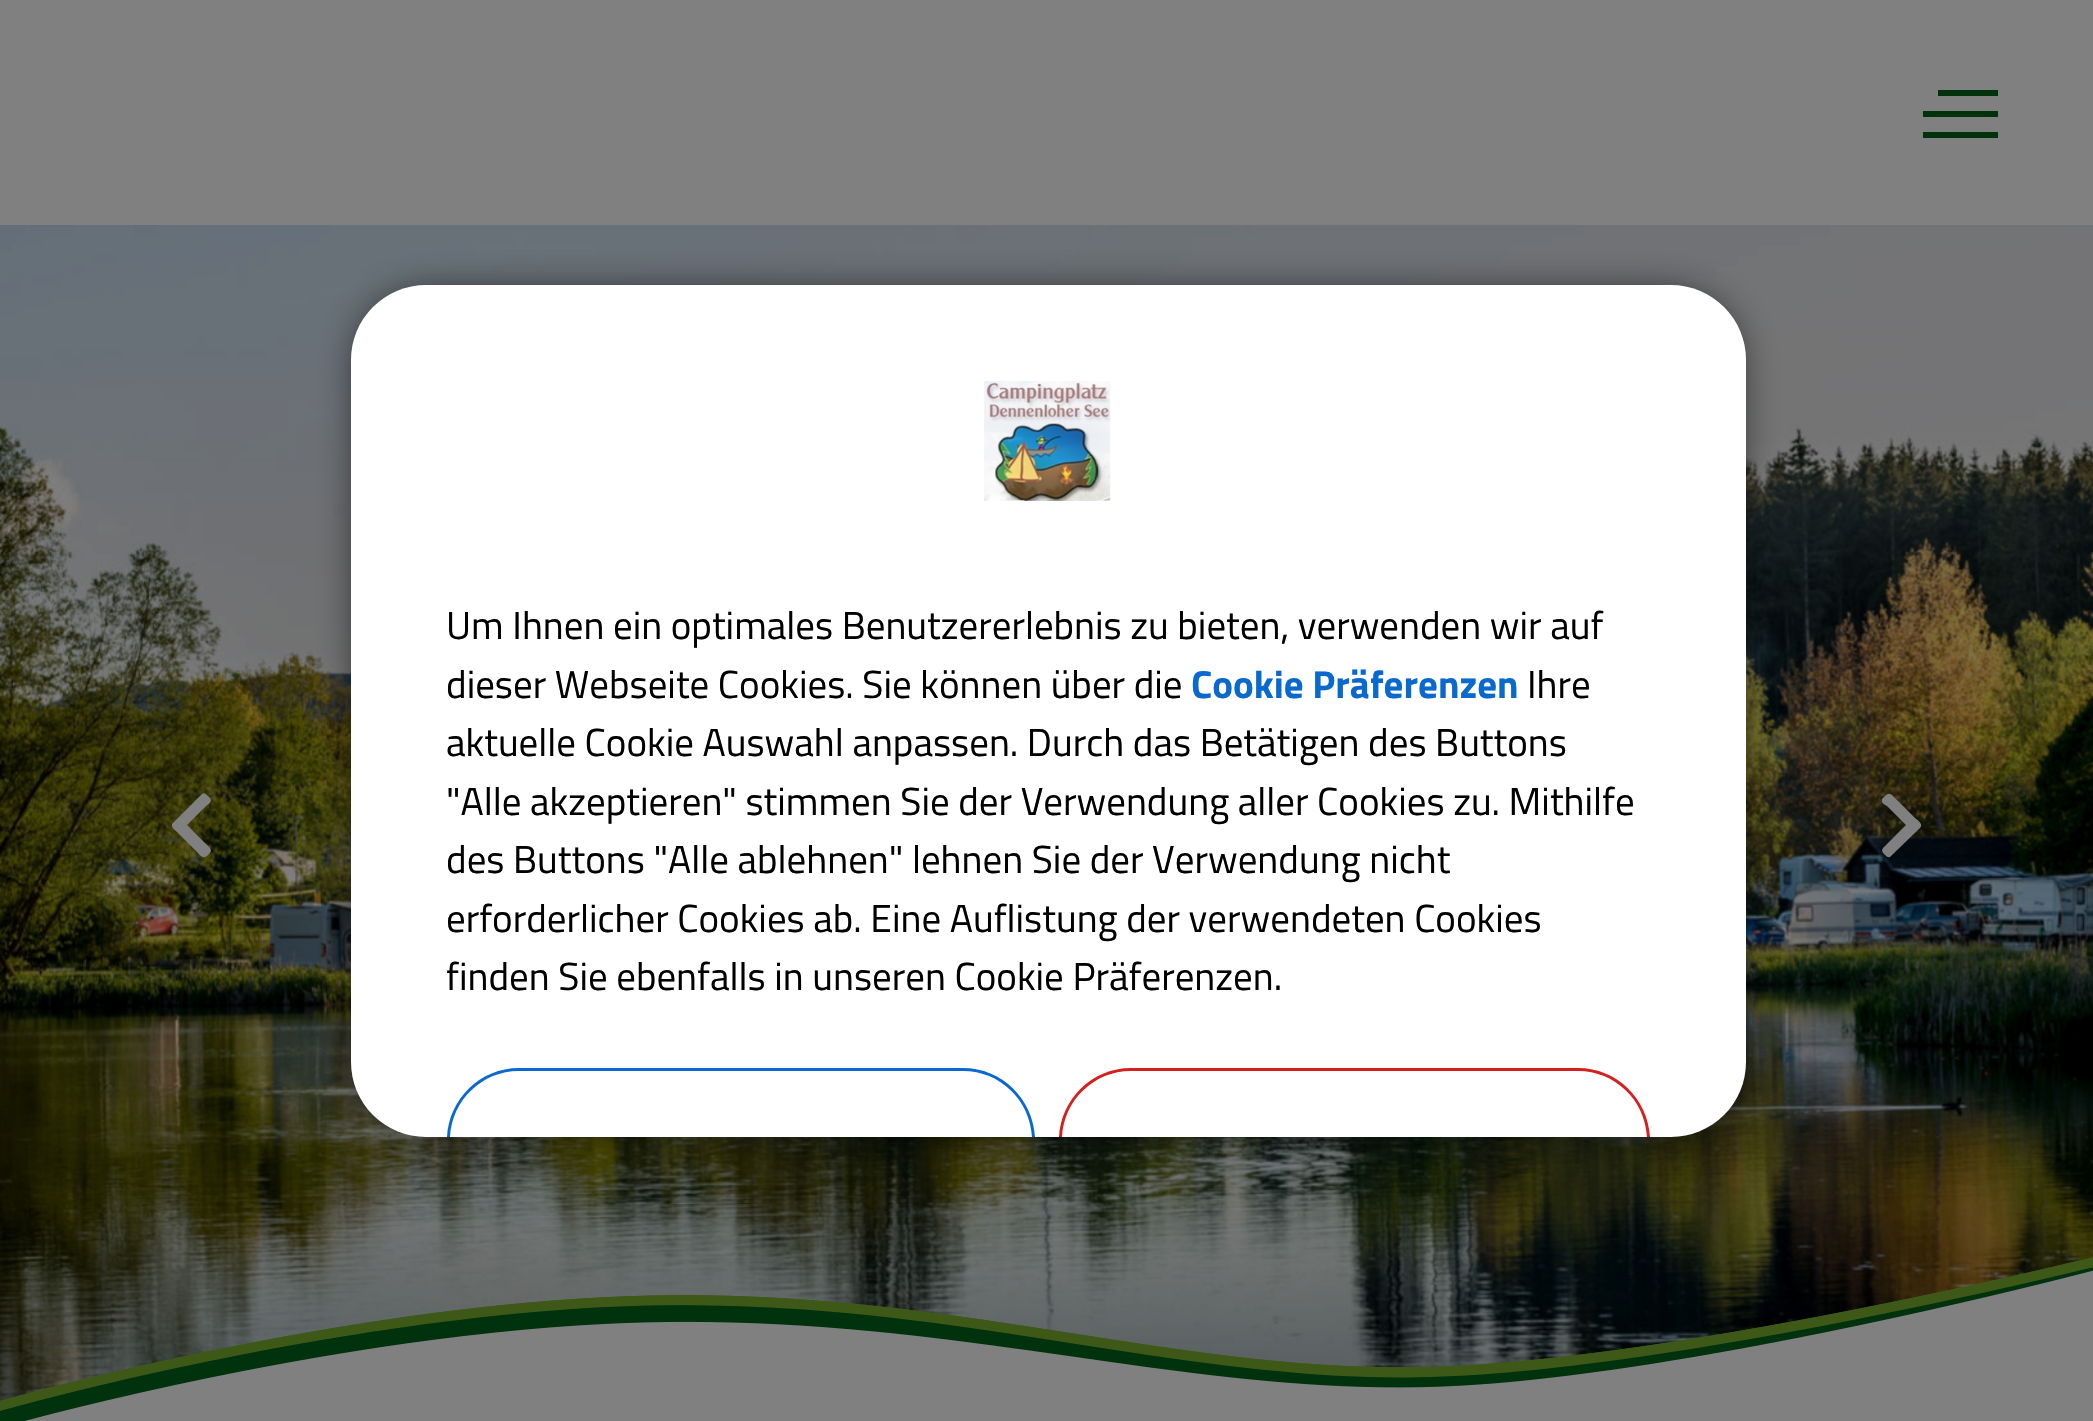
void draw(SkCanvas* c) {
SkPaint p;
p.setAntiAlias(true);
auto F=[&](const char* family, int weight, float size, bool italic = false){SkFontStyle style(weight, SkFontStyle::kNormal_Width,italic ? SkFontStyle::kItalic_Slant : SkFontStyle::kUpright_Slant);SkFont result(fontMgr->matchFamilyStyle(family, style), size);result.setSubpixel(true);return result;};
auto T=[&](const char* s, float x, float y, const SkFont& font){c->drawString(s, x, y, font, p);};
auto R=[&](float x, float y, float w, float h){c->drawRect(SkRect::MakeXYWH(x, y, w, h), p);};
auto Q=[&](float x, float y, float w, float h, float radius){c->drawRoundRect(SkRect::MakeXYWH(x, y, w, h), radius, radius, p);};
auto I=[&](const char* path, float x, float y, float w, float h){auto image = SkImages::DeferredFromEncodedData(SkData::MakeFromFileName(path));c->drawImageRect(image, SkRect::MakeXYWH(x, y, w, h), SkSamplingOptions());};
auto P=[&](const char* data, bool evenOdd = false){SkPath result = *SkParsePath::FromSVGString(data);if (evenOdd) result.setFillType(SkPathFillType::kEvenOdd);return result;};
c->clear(0xff808080);
p.setColor(0xff00330d);
R(1938,90,60,6);
R(1923,111,75,6);
R(1923,132,75,6);
I("1.png",0,225,2093,1196);
p.setColor(0xff808080);
c->drawPath(P("M173 823l29-29c2-2 5 1 7 3c4 4 1 6-3 9l-19 19l19 19c2 2 5 4 5 7c-1 2-2 3-3 4c-5 5-7 1-11-3l-19-19c-2-2-9-7-5-10z"),p);
c->drawPath(P("M1920 828l-29 28c-2 3-5 0-7-2c-4-4-1-6 3-10l19-19l-19-19c-2-1-6-3-5-7c1-1 2-2 3-3c5-5 7-1 11 3l19 19c2 2 9 6 5 10z"),p);
I("2.png",0,1257,2093,164);
I("3.png",0,1257,2093,154);
p.setColor(0xff000000);
p.setMaskFilter(SkMaskFilter::MakeBlur(kNormal_SkBlurStyle, 22.5));
c->drawRoundRect(SkRect::MakeXYWH(366,300,1365,822),60,60,p);
p.setMaskFilter(nullptr);
p.setColor(0xffffffff);
Q(351,285,1395,852,75);
I("4.png",984,381,127,120);
auto f1 = F("Titillium Web",400,39);
p.setColor(0xff000000);
T("Um Ihnen ein optimales Benutzererlebnis zu bieten, verwenden wir auf",446,639,f1);
T("dieser Webseite Cookies. Sie können über die",446,698,f1);
auto f2 = F("Titillium Web",700,39);
p.setColor(0xff0a69ce);
T("Cookie Präferenzen",1191,698,f2);
p.setColor(0xff000000);
T("Ihre",1527,698,f1);
T("aktuelle Cookie Auswahl anpassen. Durch das Betätigen des Buttons",446,756,f1);
T("\"Alle akzeptieren\" stimmen Sie der Verwendung aller Cookies zu. Mithilfe",446,815,f1);
T("des Buttons \"Alle ablehnen\" lehnen Sie der Verwendung nicht",446,873,f1);
T("erforderlicher Cookies ab. Eine Auflistung der verwendeten Cookies",446,932,f1);
T("finden Sie ebenfalls in unseren Cookie Präferenzen.",446,990,f1);
p.setColor(0xff0a69ce);
c->drawPath(P("M519 1068c-39 0-70 31-72 69h3c2-37 32-66 69-66h444c37 0 67 29 69 66h3c-2-38-33-69-72-69z"),p);
p.setColor(0xffd52020);
c->drawPath(P("M1131 1068c-39 0-70 31-72 69h3c2-37 32-66 69-66h447c37 0 67 29 69 66h3c-2-38-33-69-72-69z"),p);
}
